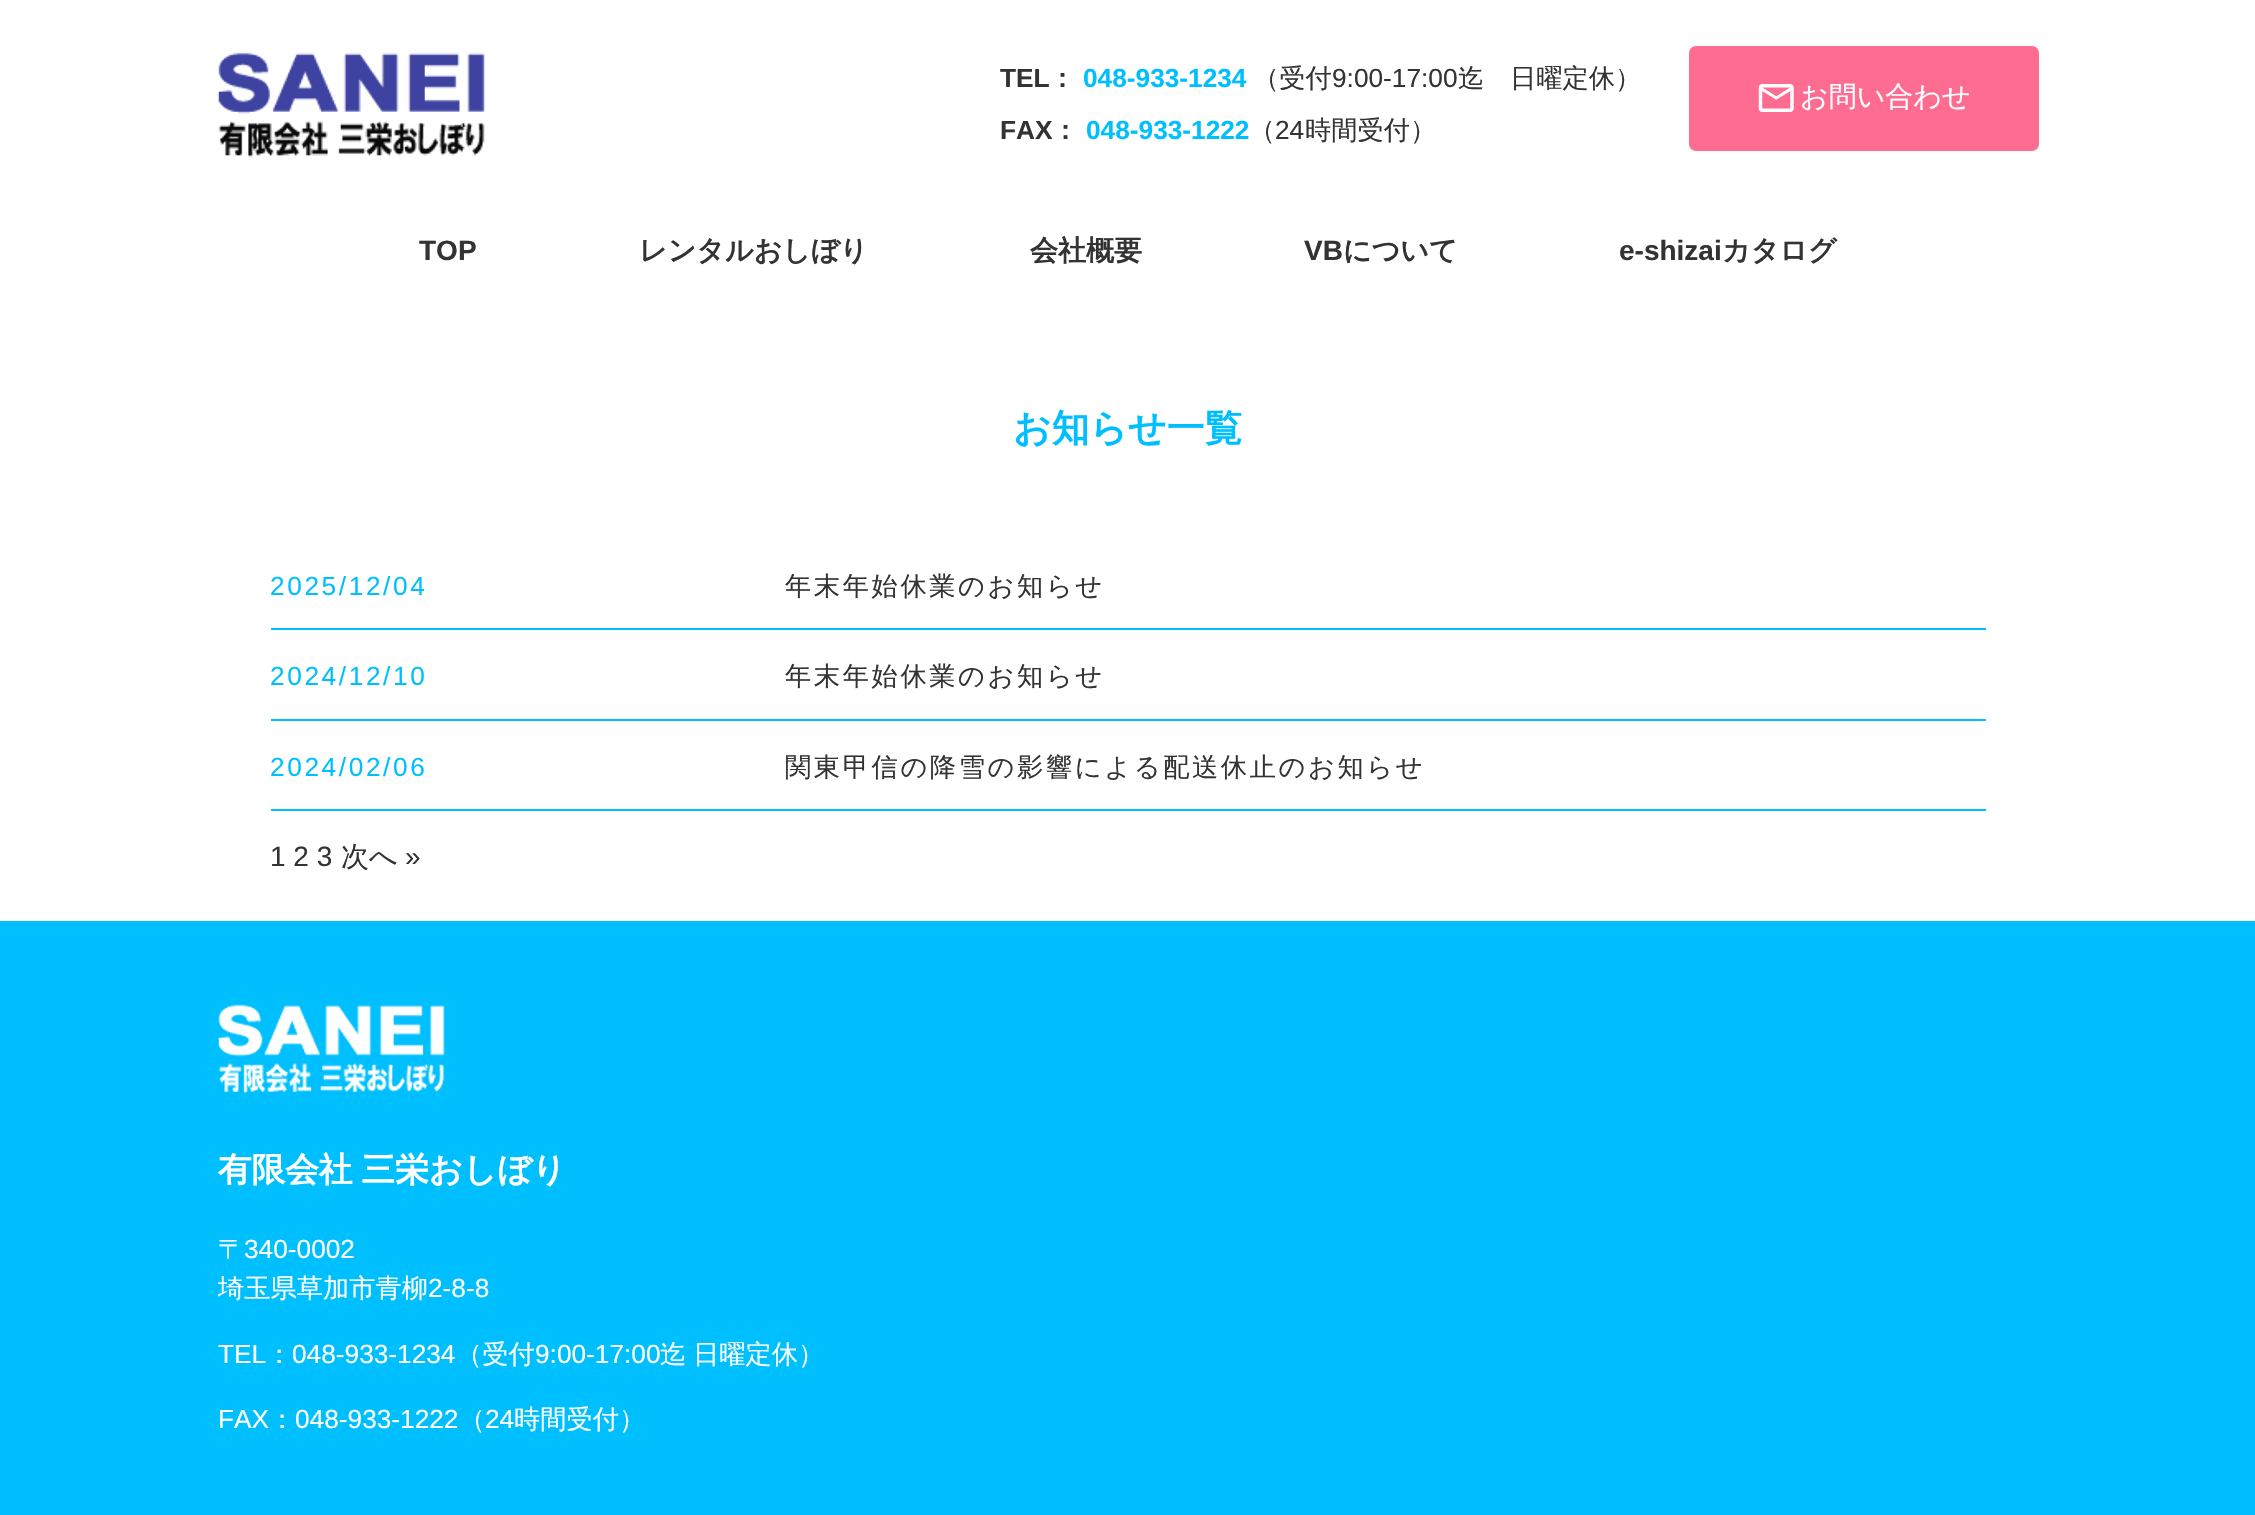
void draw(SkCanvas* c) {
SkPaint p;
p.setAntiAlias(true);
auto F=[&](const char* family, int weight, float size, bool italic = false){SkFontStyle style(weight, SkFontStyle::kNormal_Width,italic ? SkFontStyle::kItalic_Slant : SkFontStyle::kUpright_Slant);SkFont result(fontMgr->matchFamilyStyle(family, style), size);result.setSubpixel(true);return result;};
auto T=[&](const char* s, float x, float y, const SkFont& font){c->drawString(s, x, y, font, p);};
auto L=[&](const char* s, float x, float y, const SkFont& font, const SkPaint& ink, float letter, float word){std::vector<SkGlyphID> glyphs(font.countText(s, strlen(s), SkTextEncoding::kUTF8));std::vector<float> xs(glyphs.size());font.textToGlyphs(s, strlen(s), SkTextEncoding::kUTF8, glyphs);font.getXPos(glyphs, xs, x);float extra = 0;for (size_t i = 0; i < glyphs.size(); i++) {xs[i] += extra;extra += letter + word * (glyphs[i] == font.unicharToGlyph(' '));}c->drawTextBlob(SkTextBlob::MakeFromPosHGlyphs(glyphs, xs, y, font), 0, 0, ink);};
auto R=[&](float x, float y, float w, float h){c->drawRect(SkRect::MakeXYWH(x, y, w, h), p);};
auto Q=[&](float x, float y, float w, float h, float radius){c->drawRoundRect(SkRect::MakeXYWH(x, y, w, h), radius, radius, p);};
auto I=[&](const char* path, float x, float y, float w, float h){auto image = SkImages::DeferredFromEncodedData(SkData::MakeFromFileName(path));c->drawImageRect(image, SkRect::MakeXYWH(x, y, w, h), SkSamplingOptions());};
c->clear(0xffffffff);
I("1.png",218,52,267,106);
auto f1 = F("Liberation Sans",700,26.25);
p.setColor(0xff333333);
T("TEL",1000,87,f1);
auto f2 = F("WenQuanYi Zen Hei",700,26.25);
T("：",1049,87,f2);
p.setColor(0xff00bfff);
T("048-933-1234",1083,87,f1);
auto f3 = F("WenQuanYi Zen Hei",500,26.25);
p.setColor(0xff333333);
T("（受付",1253,87,f3);
auto f4 = F("Liberation Sans",400,26.25);
T("9:00-17:00",1332,87,f4);
T("迄",1458,87,f3);
T("日曜定休）",1510,87,f3);
T("FAX",1000,139,f1);
T("：",1052,139,f2);
p.setColor(0xff00bfff);
T("048-933-1222",1086,139,f1);
p.setColor(0xff333333);
T("（",1249,139,f3);
T("24",1275,139,f4);
T("時間受付）",1305,139,f3);
p.setColor(0xffff6c92);
Q(1689,46,350,105,7);
I("2.png",1758,84,36,28);
auto f5 = F("WenQuanYi Zen Hei",500,28);
p.setColor(0xffffffff);
T("お問い合わせ",1800,106,f5);
auto f6 = F("Liberation Sans",700,28);
p.setColor(0xff333333);
T("TOP",419,260,f6);
auto f7 = F("WenQuanYi Zen Hei",700,28);
T("レンタルおしぼり",639,260,f7);
T("会社概要",1030,260,f7);
T("VB",1304,260,f6);
T("について",1343,260,f7);
T("e-shizai",1619,260,f6);
T("カタログ",1722,260,f7);
auto f8 = F("WenQuanYi Zen Hei",700,37.75);
p.setColor(0xff00bfff);
T("お知らせ一覧",1013,441,f8);
R(271,628,1715,2);
L("2025/12/04",270,595,f4,p,2.6,0);
p.setColor(0xff333333);
L("年末年始休業のお知らせ",785,595,f3,p,2.6,0);
p.setColor(0xff00bfff);
R(271,719,1715,2);
L("2024/12/10",270,685,f4,p,2.6,0);
p.setColor(0xff333333);
L("年末年始休業のお知らせ",785,685,f3,p,2.6,0);
p.setColor(0xff00bfff);
R(271,809,1715,2);
L("2024/02/06",270,776,f4,p,2.6,0);
p.setColor(0xff333333);
L("関東甲信の降雪の影響による配送休止のお知らせ",785,776,f3,p,2.6,0);
auto f9 = F("Liberation Sans",400,28);
T("1 2 3",270,866,f9);
T("次へ",341,866,f5);
T("»",405,866,f9);
p.setColor(0xff00bfff);
R(0,921,2255,594);
I("3.png",218,1004,227,90);
auto f10 = F("WenQuanYi Zen Hei",700,33.6);
p.setColor(0xffffffff);
L("有限会社 三栄おしぼり",218,1181,f10,p,0,-1);
T("〒",218,1258,f3);
T("340-0002",244,1258,f4);
T("埼玉県草加市青柳",218,1297,f3);
T("2-8-8",428,1297,f4);
T("TEL",218,1363,f4);
T("：",266,1363,f3);
T("048-933-1234",292,1363,f4);
T("（受付",456,1363,f3);
T("9:00-17:00",535,1363,f4);
L("迄 日曜定休）",660,1363,f3,p,0,-1);
T("FAX",218,1428,f4);
T("：",269,1428,f3);
T("048-933-1222",295,1428,f4);
T("（",459,1428,f3);
T("24",485,1428,f4);
T("時間受付）",514,1428,f3);
}
